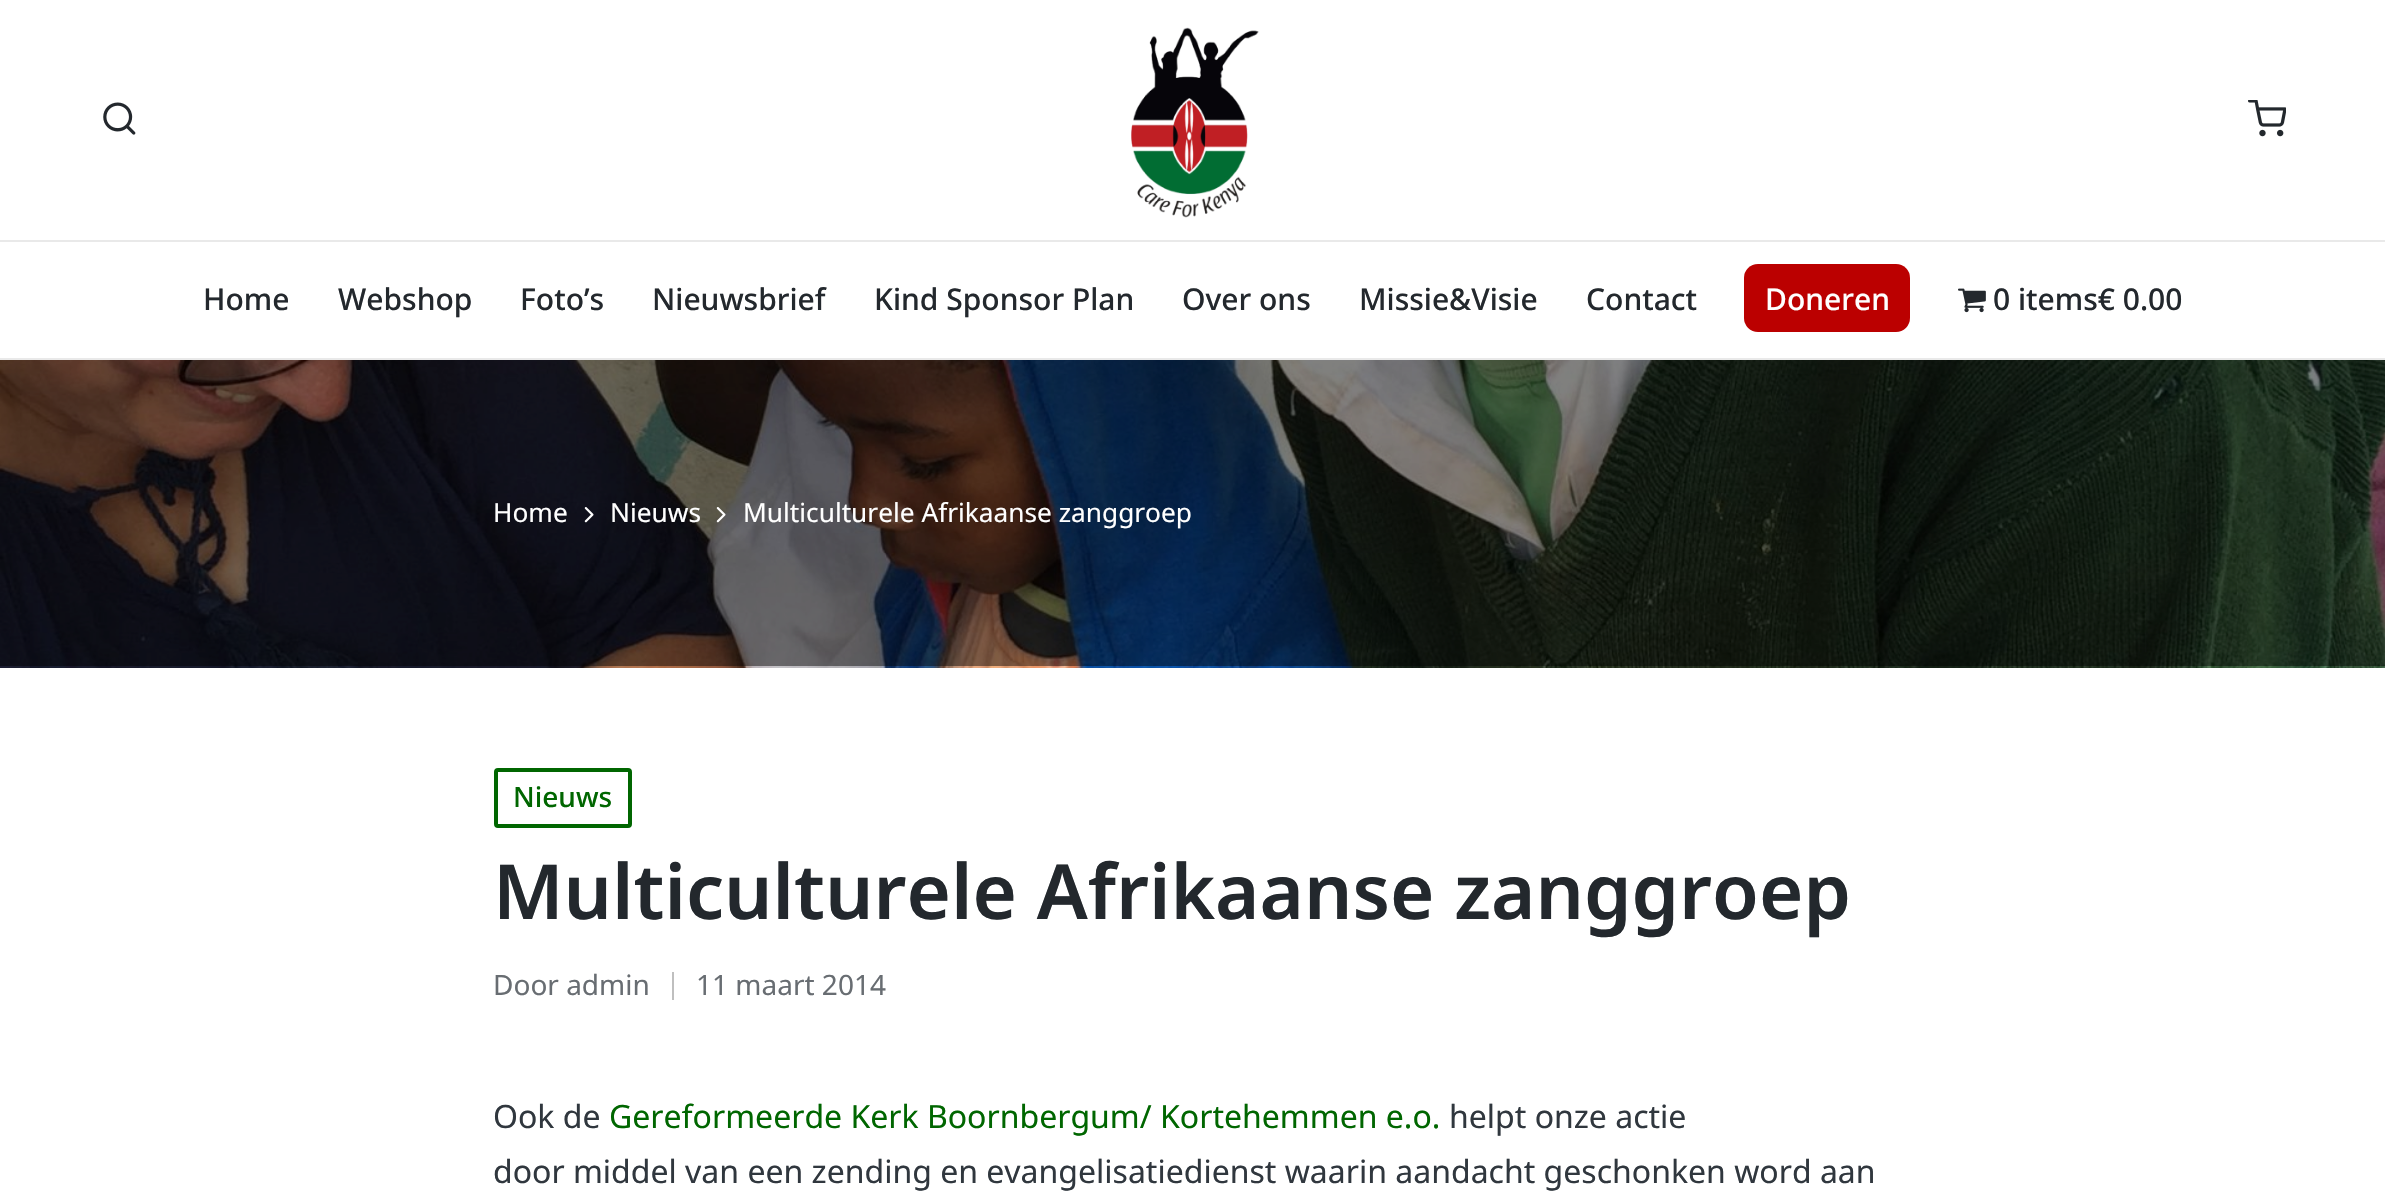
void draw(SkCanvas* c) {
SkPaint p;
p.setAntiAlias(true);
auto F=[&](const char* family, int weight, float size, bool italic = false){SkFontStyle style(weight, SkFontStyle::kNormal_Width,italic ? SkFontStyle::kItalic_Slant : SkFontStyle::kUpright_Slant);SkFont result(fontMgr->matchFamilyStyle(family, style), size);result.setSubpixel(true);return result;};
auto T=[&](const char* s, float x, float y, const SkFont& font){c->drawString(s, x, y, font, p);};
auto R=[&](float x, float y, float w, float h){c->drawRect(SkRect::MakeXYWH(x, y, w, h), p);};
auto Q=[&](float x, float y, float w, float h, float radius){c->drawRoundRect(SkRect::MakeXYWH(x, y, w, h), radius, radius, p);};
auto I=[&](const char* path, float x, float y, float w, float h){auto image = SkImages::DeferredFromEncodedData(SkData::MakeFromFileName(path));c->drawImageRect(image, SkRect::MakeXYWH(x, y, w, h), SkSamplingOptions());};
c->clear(0xffffffff);
I("1.png",103,102,33,33);
I("2.png",1131,27,128,191);
I("3.png",2248,100,38,37);
p.setColor(0xffe9e9e9);
R(0,240,2385,2);
R(0,358,2385,2);
auto f1 = F("Noto Sans",500,30);
p.setColor(0xff23282d);
T("Home",203,310,f1);
T("Webshop",338,310,f1);
T("Foto’s",520,310,f1);
T("Nieuwsbrief",652,310,f1);
T("Kind Sponsor Plan",874,310,f1);
T("Over ons",1182,310,f1);
T("Missie&Visie",1359,310,f1);
T("Contact",1586,310,f1);
p.setColor(0xffbb0000);
Q(1744,264,166,68,14);
p.setColor(0xffffffff);
T("Doneren",1765,310,f1);
I("4.png",1958,288,28,25);
p.setColor(0xff23282d);
T("0 items€ 0.00",1993,310,f1);
I("5.png",0,360,2385,308);
p.setColor(0x0f000000);
R(0,666,2385,2);
auto f2 = F("Noto Sans",400,26.25);
p.setColor(0xffffffff);
T("Home",493,522,f2);
I("6.png",584,507,10,16);
T("Nieuws",610,522,f2);
I("7.png",716,507,10,16);
T("Multiculturele Afrikaanse zanggroep",743,522,f2);
p.setStroke(true);
p.setStrokeWidth(4);
p.setColor(0xff006600);
c->drawRoundRect(SkRect::MakeXYWH(496,770,134,56),2,2,p);
auto f3 = F("Noto Sans",500,28);
p.setStroke(false);
T("Nieuws",513,807,f3);
auto f4 = F("Noto Sans",600,76);
p.setColor(0xff23282d);
T("Multiculturele Afrikaanse zanggroep",493,919,f4);
auto f5 = F("Noto Sans",400,28);
p.setColor(0xff686d72);
T("Door admin",493,995,f5);
p.setColor(0xffbfbfbf);
R(672,972,2,28);
p.setColor(0xff686d72);
T("11 maart 2014",696,995,f5);
auto f6 = F("Noto Sans",400,32);
p.setColor(0xff30373e);
T("Ook de",493,1128,f6);
p.setColor(0xff006600);
T("Gereformeerde Kerk Boornbergum/ Kortehemmen e.o.",609,1128,f6);
p.setColor(0xff30373e);
T("helpt onze actie",1449,1128,f6);
T("door middel van een zending en evangelisatiedienst waarin aandacht geschonken word aan",493,1183,f6);
}
